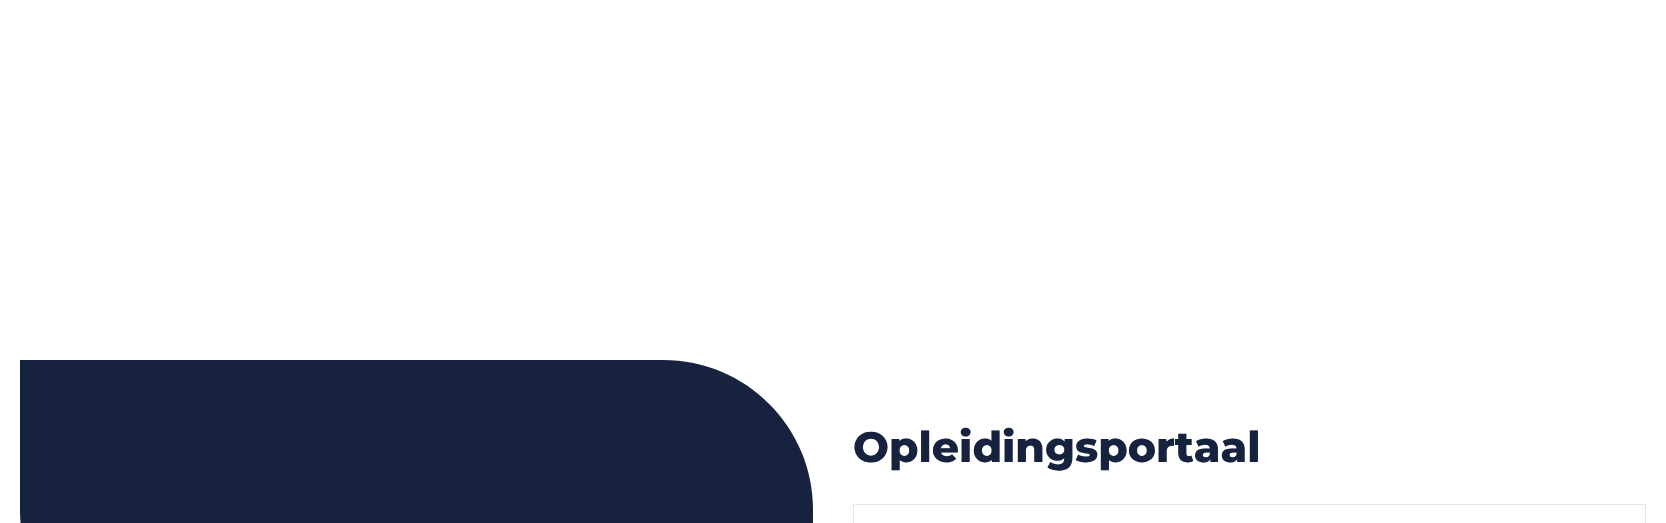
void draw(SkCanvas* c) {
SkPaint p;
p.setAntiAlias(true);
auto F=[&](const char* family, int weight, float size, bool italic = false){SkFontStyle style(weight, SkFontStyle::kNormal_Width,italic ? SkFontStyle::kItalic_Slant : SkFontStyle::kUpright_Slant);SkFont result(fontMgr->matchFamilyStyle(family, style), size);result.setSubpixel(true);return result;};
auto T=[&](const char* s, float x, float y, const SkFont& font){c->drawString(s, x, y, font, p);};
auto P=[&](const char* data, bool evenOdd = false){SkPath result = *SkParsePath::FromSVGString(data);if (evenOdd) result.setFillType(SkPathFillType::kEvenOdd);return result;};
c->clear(0xffffffff);
p.setColor(0xff17233e);
c->drawPath(P("M20 360h643c83 0 150 67 150 150v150h-643c-83 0-150-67-150-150z"),p);
auto f1 = F("Montserrat",800,42.5);
T("Opleidingsportaal",853,462,f1);
p.setStroke(true);
p.setStrokeWidth(1);
p.setColor(0xffe2e8ec);
c->drawRect(SkRect::MakeXYWH(853.5,504.5,792,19),p);
}
